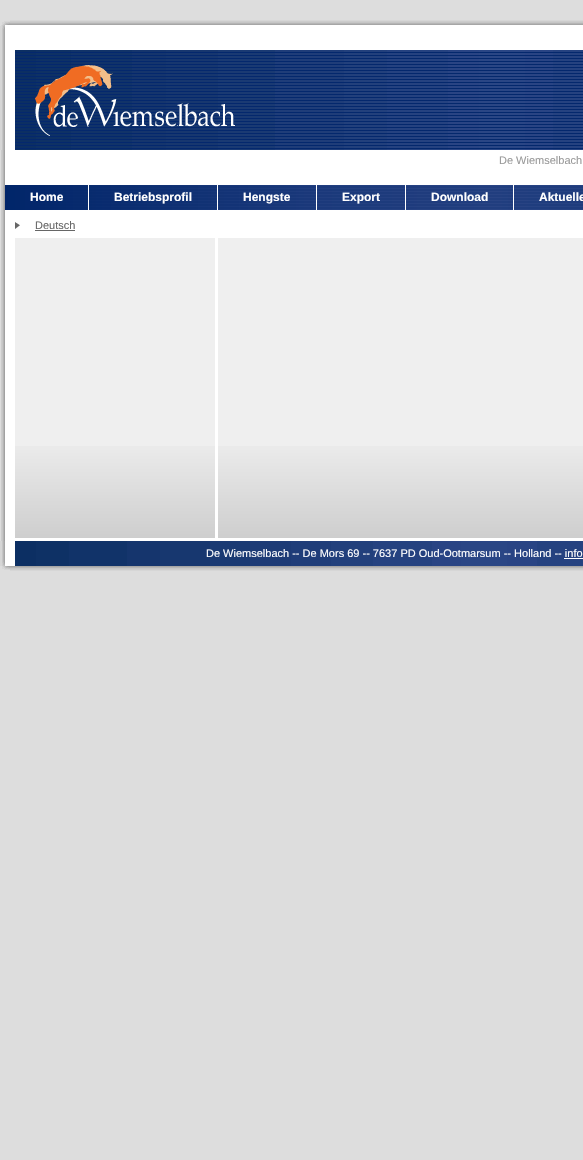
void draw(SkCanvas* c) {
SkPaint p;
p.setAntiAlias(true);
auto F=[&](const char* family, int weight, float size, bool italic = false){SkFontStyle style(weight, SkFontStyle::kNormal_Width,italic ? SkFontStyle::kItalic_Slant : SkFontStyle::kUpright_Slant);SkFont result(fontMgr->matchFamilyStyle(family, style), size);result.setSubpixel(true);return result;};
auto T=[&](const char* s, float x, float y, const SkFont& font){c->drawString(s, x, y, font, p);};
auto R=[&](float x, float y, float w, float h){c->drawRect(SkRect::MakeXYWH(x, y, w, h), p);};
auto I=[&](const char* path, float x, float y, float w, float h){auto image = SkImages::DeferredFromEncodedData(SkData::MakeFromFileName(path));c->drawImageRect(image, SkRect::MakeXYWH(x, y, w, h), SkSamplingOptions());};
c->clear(0xffdddddd);
I("1.png",0,20,583,130);
I("2.png",35,65,200,71);
I("3.png",1,150,582,35);
auto f1 = F("Liberation Sans",400,11);
p.setColor(0xff999999);
T("De Wiemselbach",499,164,f1);
I("4.png",1,185,582,27);
p.setColor(0xffffffff);
R(88,185,1,25);
auto f2 = F("Liberation Sans",700,12);
T("Home",30,201,f2);
R(217,185,1,25);
T("Betriebsprofil",114,201,f2);
R(316,185,1,25);
T("Hengste",243,201,f2);
R(405,185,1,25);
T("Export",342,201,f2);
R(513,185,1,25);
T("Download",431,201,f2);
T("Aktuelle",539,201,f2);
I("5.png",1,212,582,25);
I("6.png",15,222,5,7);
p.setColor(0xff666666);
T("Deutsch",35,229,f1);
R(35,230,40,1);
I("7.png",1,237,582,304);
p.setColor(0xffefefef);
R(15,238,568,208);
I("8.png",15,446,568,92);
p.setColor(0xffffffff);
R(215,238,3,300);
I("9.png",0,541,583,30);
T("De Wiemselbach -- De Mors 69 -- 7637 PD Oud-Ootmarsum -- Holland -- info",206,557,f1);
R(564,558,19,1);
}
